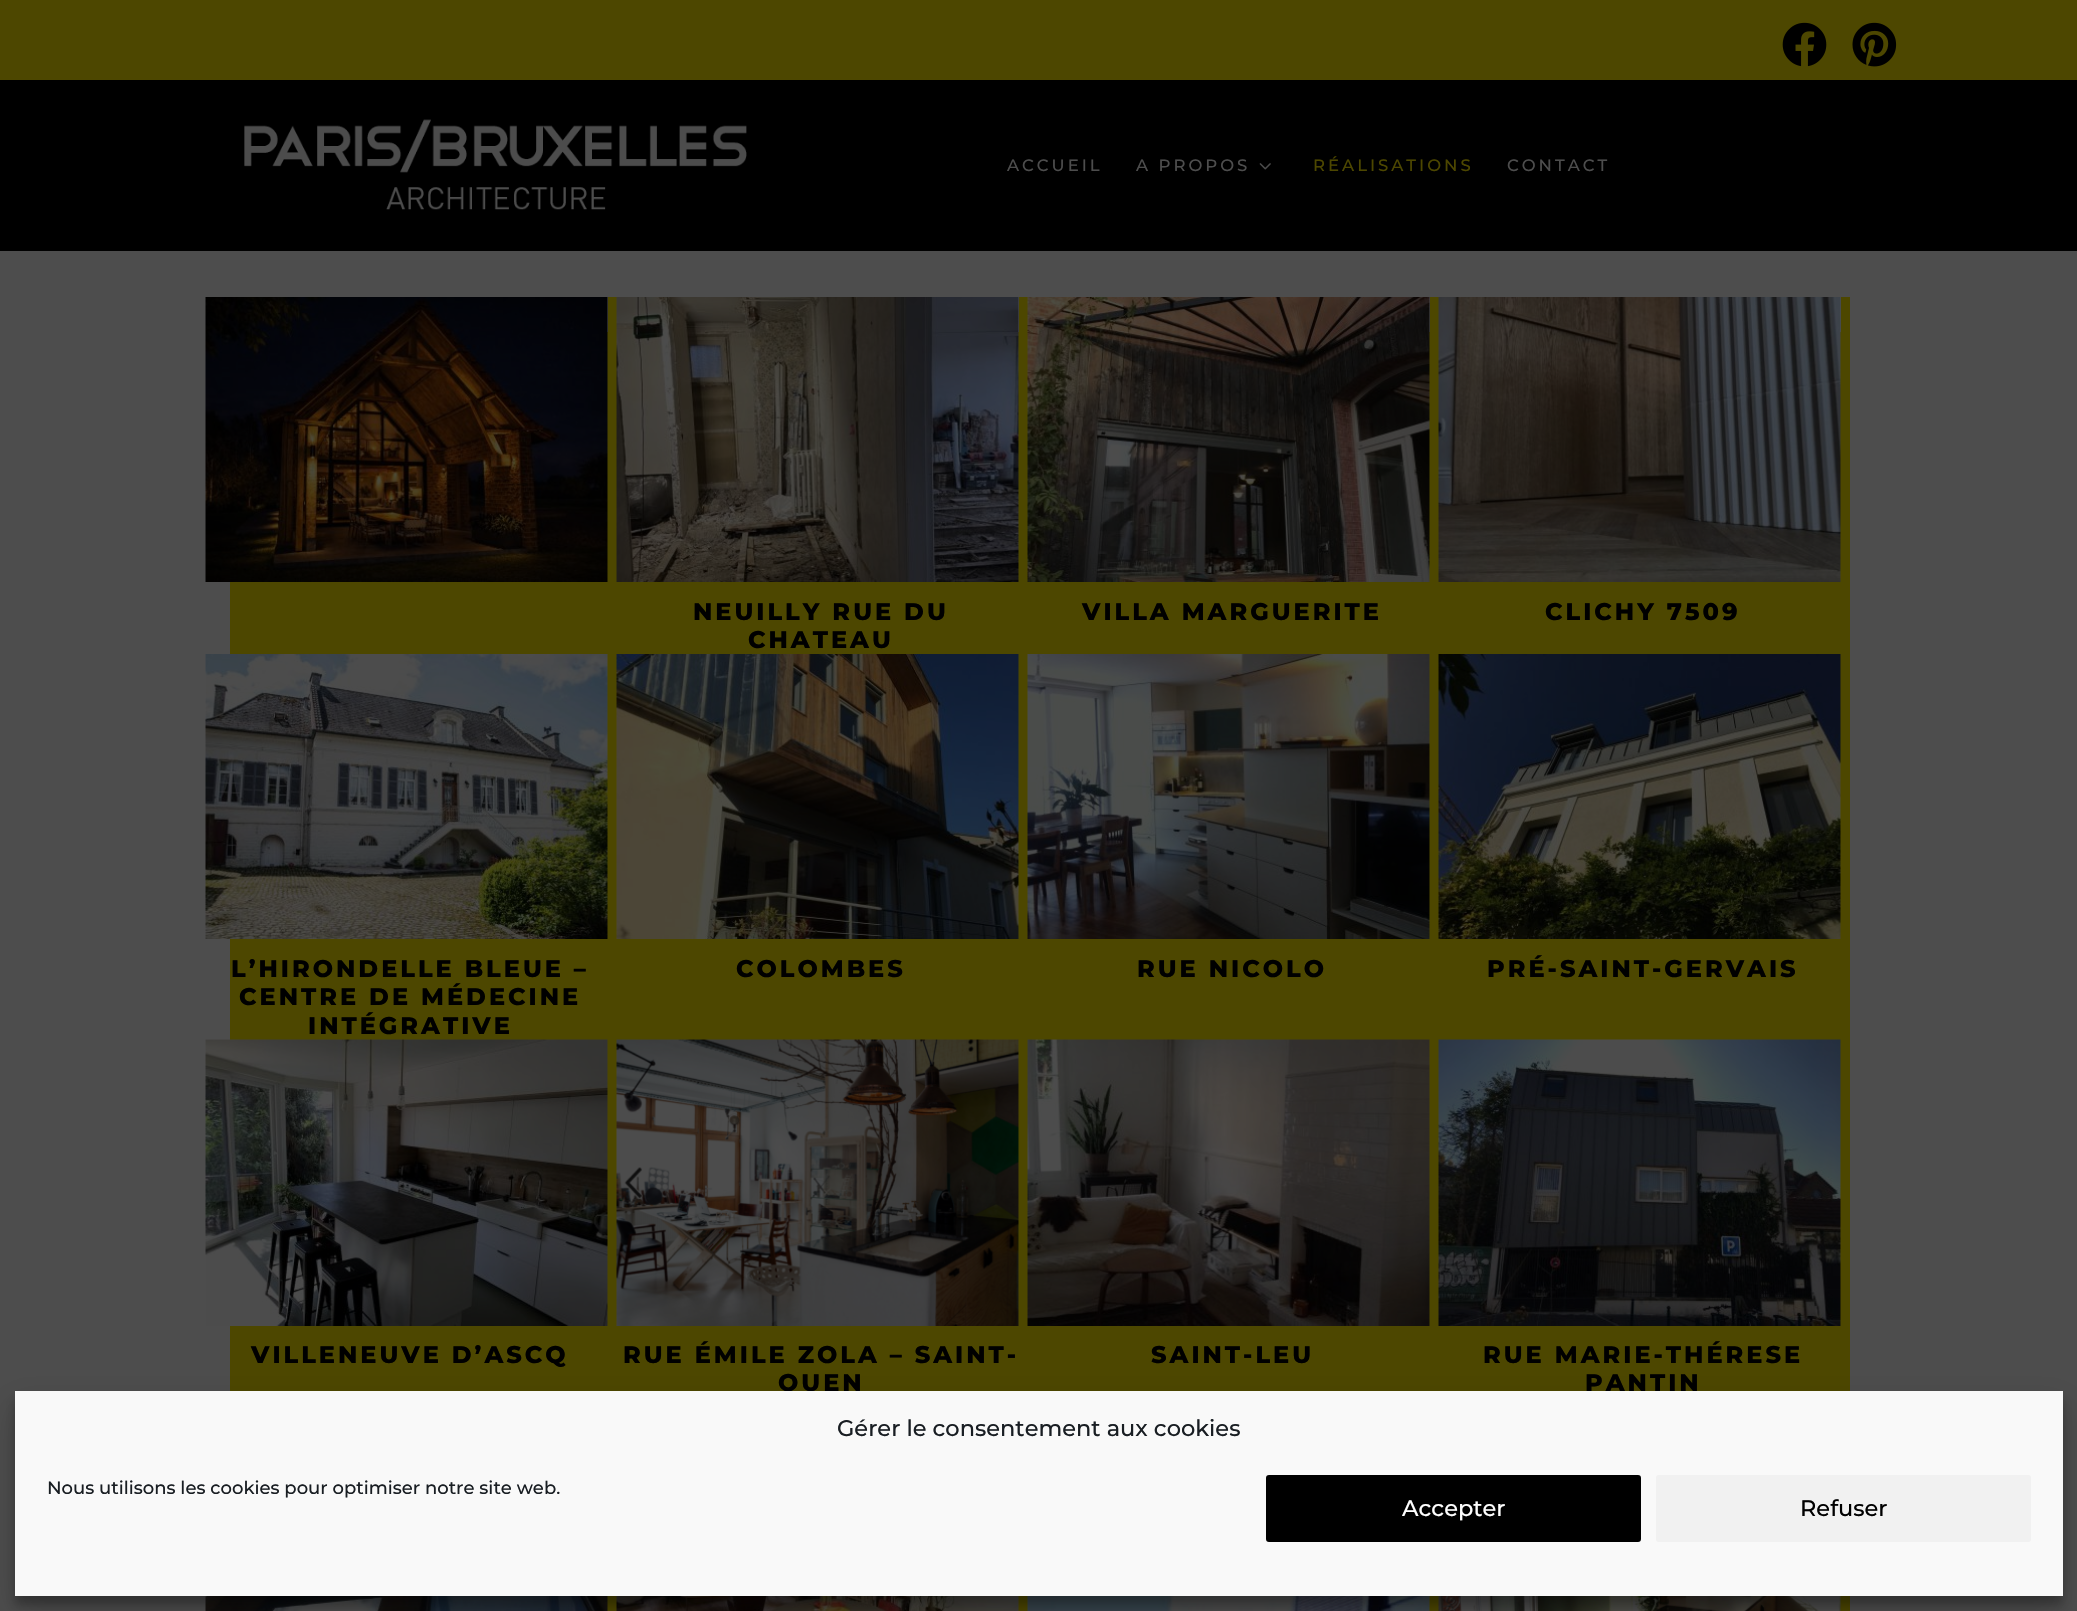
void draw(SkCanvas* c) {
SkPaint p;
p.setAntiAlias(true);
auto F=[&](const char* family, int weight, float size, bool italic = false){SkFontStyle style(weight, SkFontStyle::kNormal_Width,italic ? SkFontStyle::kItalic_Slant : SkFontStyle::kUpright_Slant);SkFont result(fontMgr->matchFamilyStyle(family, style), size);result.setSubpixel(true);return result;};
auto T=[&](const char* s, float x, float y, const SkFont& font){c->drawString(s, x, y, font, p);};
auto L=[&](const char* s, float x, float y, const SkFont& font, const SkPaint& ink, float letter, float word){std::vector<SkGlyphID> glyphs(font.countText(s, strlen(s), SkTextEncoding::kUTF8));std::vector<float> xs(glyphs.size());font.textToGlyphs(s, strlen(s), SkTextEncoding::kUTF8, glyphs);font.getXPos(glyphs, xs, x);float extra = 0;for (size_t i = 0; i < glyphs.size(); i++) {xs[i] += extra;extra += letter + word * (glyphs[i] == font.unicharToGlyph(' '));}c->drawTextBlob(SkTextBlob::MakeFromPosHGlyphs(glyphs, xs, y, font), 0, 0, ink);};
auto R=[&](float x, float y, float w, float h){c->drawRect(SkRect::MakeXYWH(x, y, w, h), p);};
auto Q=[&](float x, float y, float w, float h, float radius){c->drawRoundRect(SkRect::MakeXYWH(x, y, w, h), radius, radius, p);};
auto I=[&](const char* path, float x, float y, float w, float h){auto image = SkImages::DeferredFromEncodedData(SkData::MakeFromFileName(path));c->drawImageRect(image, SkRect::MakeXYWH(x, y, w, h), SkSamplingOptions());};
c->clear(0xff000000);
p.setColor(0xff4d4700);
R(0,0,2077,80);
I("1.png",1782,22,45,45);
I("2.png",1852,22,45,45);
I("3.png",244,119,503,91);
auto f1 = F("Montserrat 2",100,16.5);
p.setColor(0xff4d4d4d);
L("ACCUEIL",1007,171,f1,p,3,0);
L("A PROPOS",1136,171,f1,p,3,0);
I("4.png",1259,163,12,7);
p.setColor(0xff4d4700);
L("RÉALISATIONS",1313,171,f1,p,3,0);
p.setColor(0xff4d4d4d);
L("CONTACT",1507,171,f1,p,3,0);
R(0,251,2077,1360);
p.setColor(0xff4d4700);
R(230,332,1620,1279);
R(608,297,9,35);
I("5.png",205,297,403,285);
R(1019,297,9,35);
I("6.png",616,297,403,285);
auto f2 = F("Montserrat",100,24);
p.setColor(0xff000000);
L("NEUILLY RUE DU",693,620,f2,p,3,0);
L("CHATEAU",748,648,f2,p,3,0);
p.setColor(0xff4d4700);
R(1430,297,9,35);
I("7.png",1027,297,403,285);
p.setColor(0xff000000);
L("VILLA MARGUERITE",1082,620,f2,p,3,0);
p.setColor(0xff4d4700);
R(1841,297,9,35);
I("8.png",1438,297,403,285);
p.setColor(0xff000000);
L("CLICHY 7509",1545,620,f2,p,3,0);
I("9.png",205,654,403,285);
L("L’HIRONDELLE BLEUE –",231,977,f2,p,3,0);
L("CENTRE DE MÉDECINE",239,1005,f2,p,3,0);
L("INTÉGRATIVE",308,1034,f2,p,3,0);
I("10.png",616,654,403,285);
L("COLOMBES",736,977,f2,p,3,0);
I("11.png",1027,654,403,285);
L("RUE NICOLO",1137,977,f2,p,3,0);
I("12.png",1438,654,403,285);
L("PRÉ-SAINT-GERVAIS",1487,977,f2,p,3,0);
I("13.png",205,1039,403,287);
L("VILLENEUVE D’ASCQ",251,1363,f2,p,3,0);
I("14.png",616,1039,403,287);
L("RUE ÉMILE ZOLA – SAINT-",623,1363,f2,p,3,0);
L("OUEN",778,1391,f2,p,3,0);
I("15.png",1027,1039,403,287);
L("SAINT-LEU",1151,1363,f2,p,3,0);
I("16.png",1438,1039,403,287);
L("RUE MARIE-THÉRESE",1483,1363,f2,p,3,0);
L("PANTIN",1585,1391,f2,p,3,0);
I("17.png",205,1596,403,15);
I("18.png",616,1596,403,15);
I("19.png",1027,1596,403,15);
I("20.png",1438,1596,403,15);
p.setColor(0x3b000000);
p.setMaskFilter(SkMaskFilter::MakeBlur(kNormal_SkBlurStyle, 4.5));
c->drawRect(SkRect::MakeXYWH(15,1400,2048,205),p);
p.setMaskFilter(nullptr);
p.setColor(0x30000000);
p.setMaskFilter(SkMaskFilter::MakeBlur(kNormal_SkBlurStyle, 15));
c->drawRect(SkRect::MakeXYWH(15,1406,2048,205),p);
p.setMaskFilter(nullptr);
p.setColor(0xfff9f9f9);
R(15,1391,2048,205);
auto f3 = F("Montserrat 2",100,22.5);
p.setColor(0xff191e23);
T("Gérer le consentement aux cookies",837,1436,f3);
auto f4 = F("Montserrat 2",100,18);
T("Nous utilisons les cookies pour optimiser notre site web.",47,1494,f4);
p.setColor(0xff000000);
c->drawRoundRect(SkRect::MakeXYWH(1267,1476,373,65),2,2,p);
p.setStroke(true);
p.setStrokeWidth(2);
c->drawRoundRect(SkRect::MakeXYWH(1267,1476,373,65),2,2,p);
p.setStroke(false);
p.setColor(0xffffffff);
T("Accepter",1402,1516,f3);
p.setColor(0xfff1f1f1);
Q(1656,1475,375,67,3);
p.setColor(0xff000000);
T("Refuser",1800,1516,f3);
}
